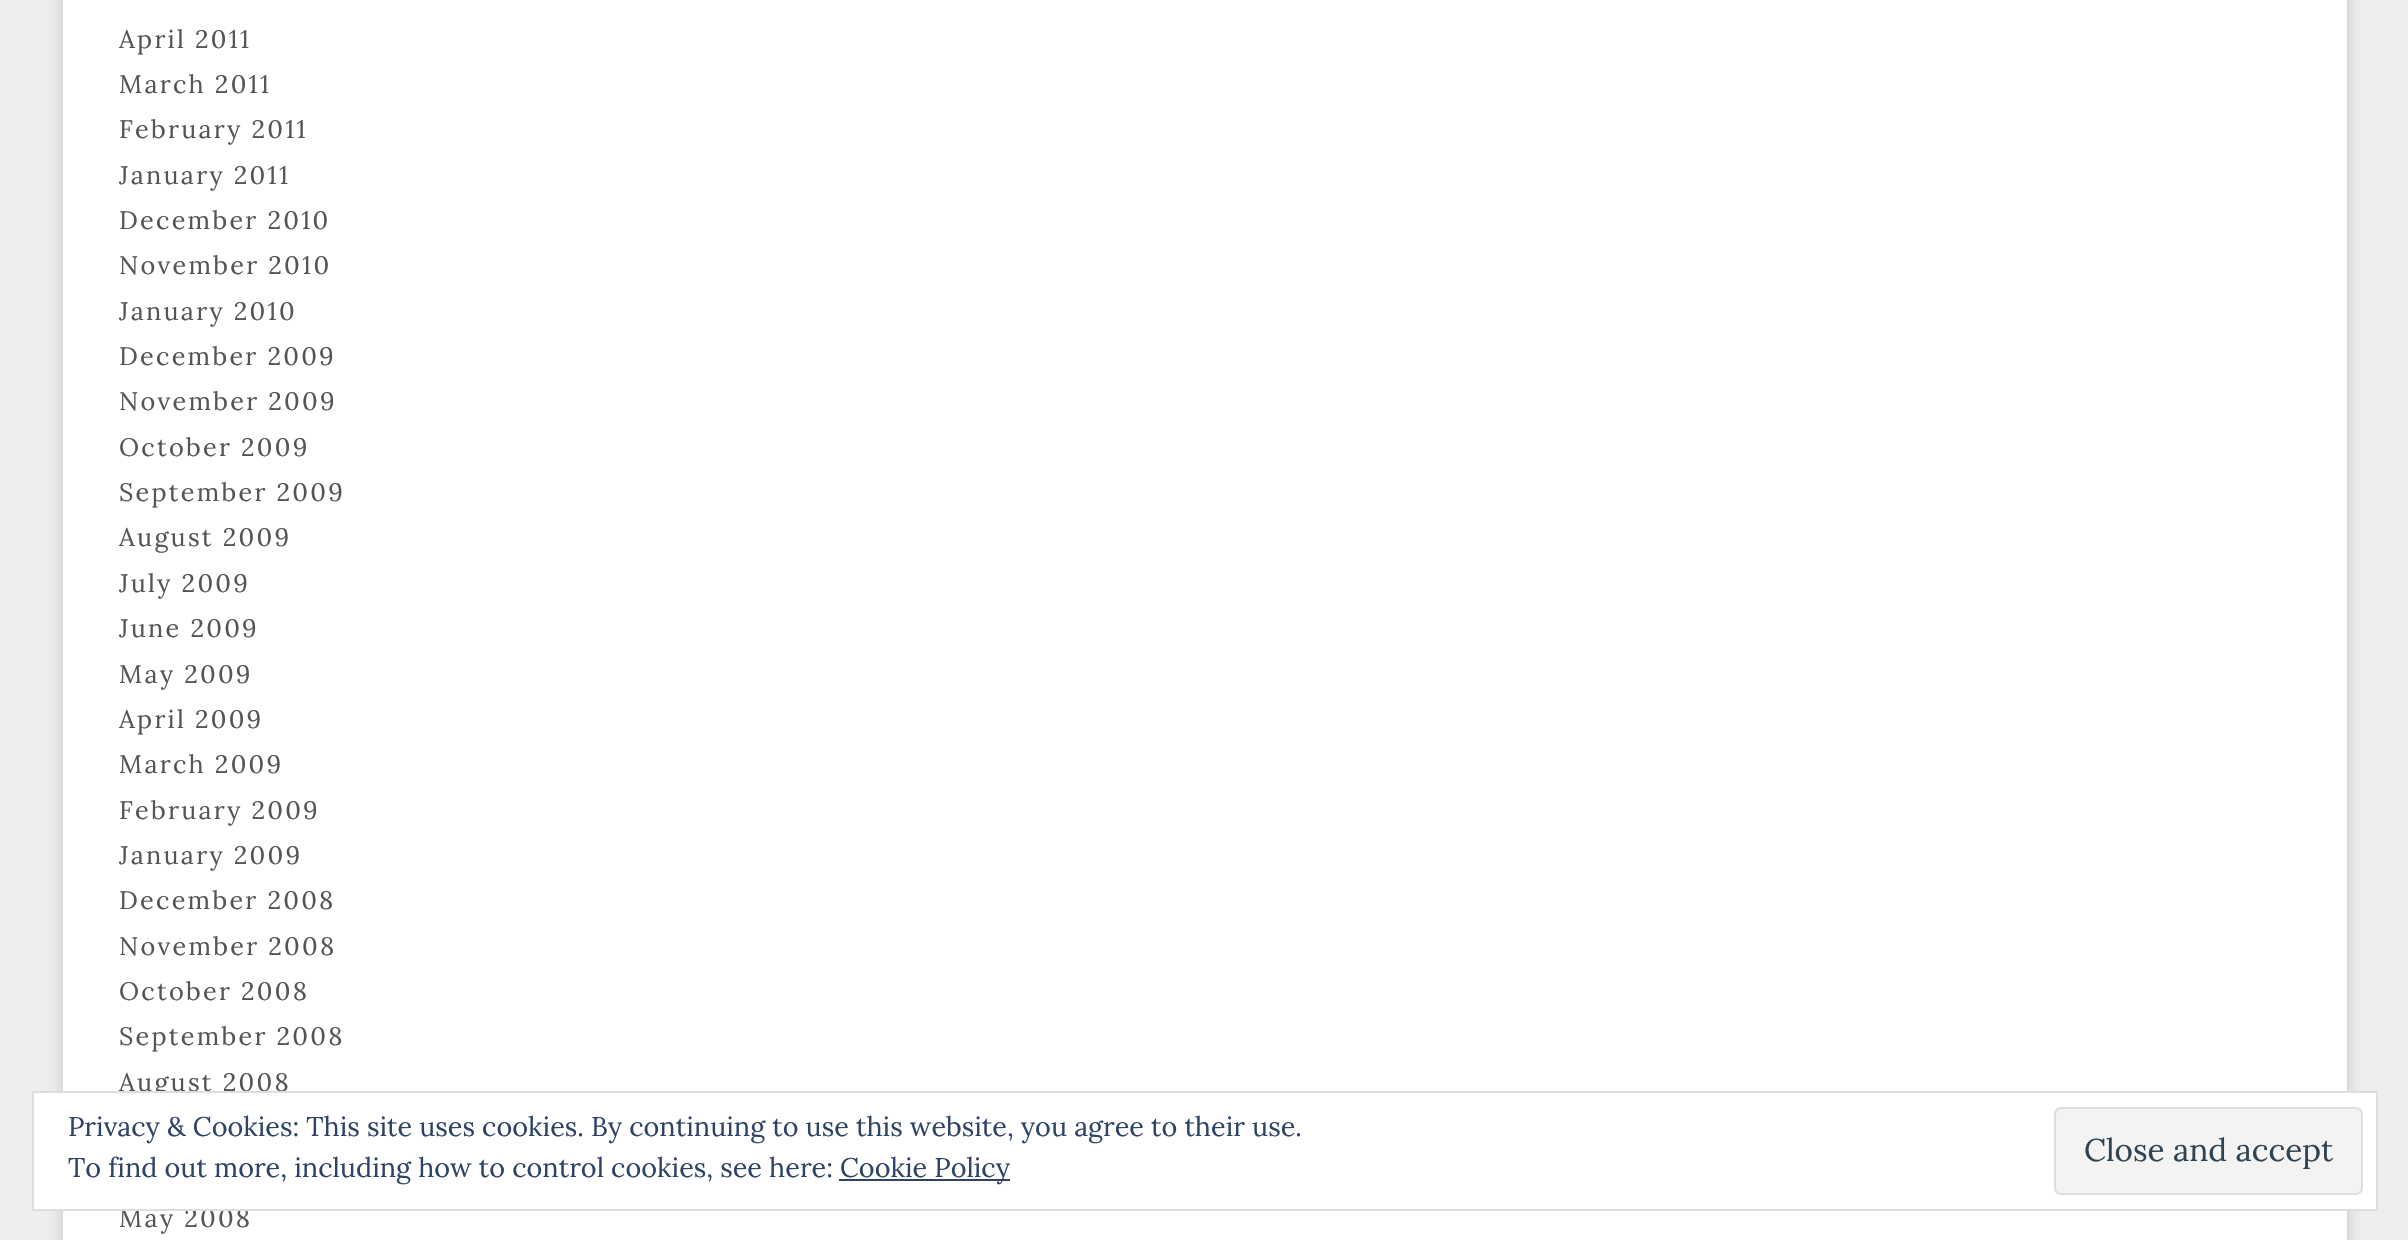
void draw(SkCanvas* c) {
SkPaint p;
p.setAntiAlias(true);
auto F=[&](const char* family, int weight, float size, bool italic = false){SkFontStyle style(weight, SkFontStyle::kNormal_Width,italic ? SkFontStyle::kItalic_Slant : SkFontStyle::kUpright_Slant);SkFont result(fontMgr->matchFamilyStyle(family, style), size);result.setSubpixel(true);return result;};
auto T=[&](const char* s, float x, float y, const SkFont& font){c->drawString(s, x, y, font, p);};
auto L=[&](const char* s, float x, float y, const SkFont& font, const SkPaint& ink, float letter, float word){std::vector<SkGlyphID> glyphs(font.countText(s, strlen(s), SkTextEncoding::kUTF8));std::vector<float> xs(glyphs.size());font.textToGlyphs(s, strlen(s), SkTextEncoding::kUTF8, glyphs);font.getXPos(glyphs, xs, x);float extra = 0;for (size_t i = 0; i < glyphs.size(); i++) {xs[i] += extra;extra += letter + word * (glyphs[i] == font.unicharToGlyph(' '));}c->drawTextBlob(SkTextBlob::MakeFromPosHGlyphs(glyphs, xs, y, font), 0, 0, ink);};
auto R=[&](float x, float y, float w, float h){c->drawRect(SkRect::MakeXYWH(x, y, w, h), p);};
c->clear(0xffeeeeee);
p.setColor(0x4d646464);
p.setMaskFilter(SkMaskFilter::MakeBlur(kNormal_SkBlurStyle, 7));
c->drawRect(SkRect::MakeXYWH(63,-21,2284,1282),p);
p.setMaskFilter(nullptr);
p.setColor(0xffffffff);
R(63,0,2284,1240);
auto f1 = F("Lora",400,25.25);
p.setColor(0xff555555);
L("April 2011",119,48,f1,p,2.25,0);
L("March 2011",119,93,f1,p,2.25,0);
L("February 2011",119,138,f1,p,2.25,0);
L("January 2011",119,184,f1,p,2.25,0);
L("December 2010",119,229,f1,p,2.25,0);
L("November 2010",119,274,f1,p,2.25,0);
L("January 2010",119,320,f1,p,2.25,0);
L("December 2009",119,365,f1,p,2.25,0);
L("November 2009",119,410,f1,p,2.25,0);
L("October 2009",119,456,f1,p,2.25,0);
L("September 2009",119,501,f1,p,2.25,0);
L("August 2009",119,546,f1,p,2.25,0);
L("July 2009",119,592,f1,p,2.25,0);
L("June 2009",119,637,f1,p,2.25,0);
L("May 2009",119,683,f1,p,2.25,0);
L("April 2009",119,728,f1,p,2.25,0);
L("March 2009",119,773,f1,p,2.25,0);
L("February 2009",119,819,f1,p,2.25,0);
L("January 2009",119,864,f1,p,2.25,0);
L("December 2008",119,909,f1,p,2.25,0);
L("November 2008",119,955,f1,p,2.25,0);
L("October 2008",119,1000,f1,p,2.25,0);
L("September 2008",119,1045,f1,p,2.25,0);
L("August 2008",119,1091,f1,p,2.25,0);
L("May 2008",119,1227,f1,p,2.25,0);
p.setColor(0xffffffff);
c->drawRect(SkRect::MakeXYWH(33,1092,2344,118),p);
p.setStroke(true);
p.setStrokeWidth(2);
p.setColor(0xffdedede);
c->drawRect(SkRect::MakeXYWH(33,1092,2344,118),p);
auto f2 = F("Lora",400,27);
p.setStroke(false);
p.setColor(0xff2e4467);
T("Privacy & Cookies: This site uses cookies. By continuing to use this website, you agree to their use.",68,1136,f2);
T("To find out more, including how to control cookies, see here:",68,1177,f2);
R(839,1179,171,2);
T("Cookie Policy",840,1177,f2);
p.setColor(0xfff3f3f3);
c->drawRoundRect(SkRect::MakeXYWH(2055,1108,307,86),6,6,p);
p.setStroke(true);
p.setColor(0xffdedede);
c->drawRoundRect(SkRect::MakeXYWH(2055,1108,307,86),6,6,p);
auto f3 = F("Lora",400,31.5);
p.setStroke(false);
p.setColor(0xff2e4453);
T("Close and accept",2084,1161,f3);
}
